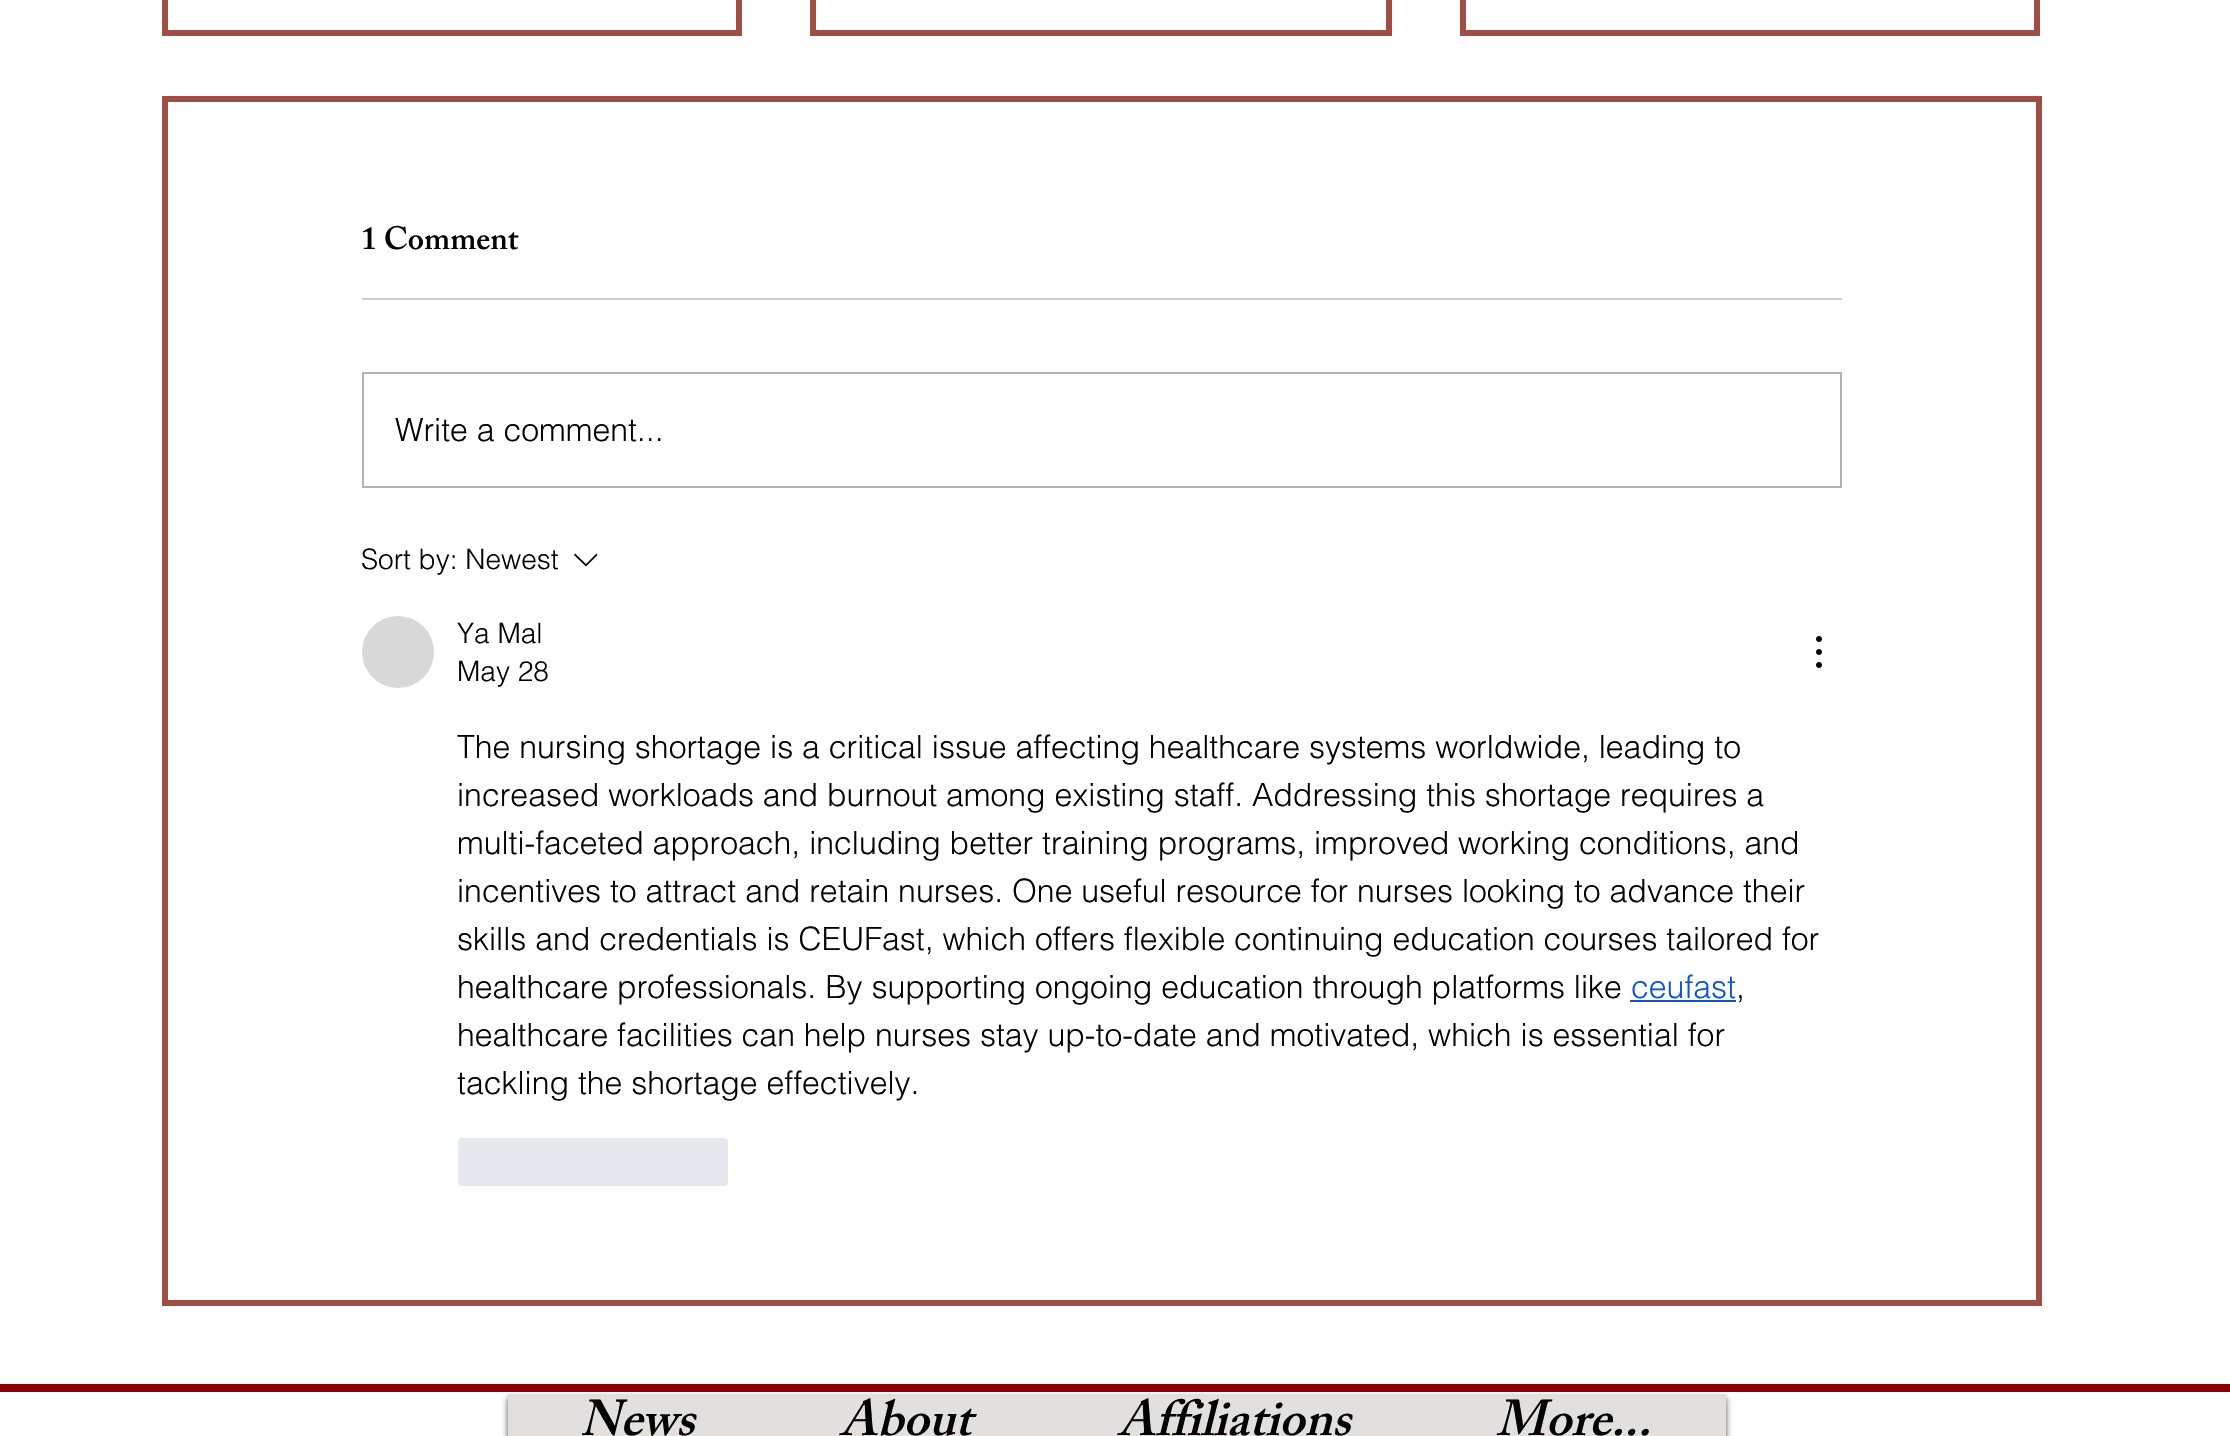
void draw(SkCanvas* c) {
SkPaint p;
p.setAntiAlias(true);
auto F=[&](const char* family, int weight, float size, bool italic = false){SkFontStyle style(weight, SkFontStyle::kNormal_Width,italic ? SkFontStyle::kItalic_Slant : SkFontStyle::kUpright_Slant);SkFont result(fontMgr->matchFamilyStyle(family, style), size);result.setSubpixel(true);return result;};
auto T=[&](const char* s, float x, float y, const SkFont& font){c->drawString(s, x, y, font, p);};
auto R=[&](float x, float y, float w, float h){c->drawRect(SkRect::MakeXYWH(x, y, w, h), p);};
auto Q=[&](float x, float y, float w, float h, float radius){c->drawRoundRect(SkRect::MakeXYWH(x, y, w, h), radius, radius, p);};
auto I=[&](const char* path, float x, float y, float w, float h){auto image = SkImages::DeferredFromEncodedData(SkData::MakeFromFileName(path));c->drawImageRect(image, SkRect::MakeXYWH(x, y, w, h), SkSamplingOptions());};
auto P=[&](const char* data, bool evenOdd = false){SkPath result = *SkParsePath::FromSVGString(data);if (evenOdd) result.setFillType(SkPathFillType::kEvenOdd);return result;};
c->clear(0xffffffff);
p.setStroke(true);
p.setStrokeWidth(6);
p.setColor(0xffa04d45);
c->drawRect(SkRect::MakeXYWH(165,-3,574,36),p);
c->drawRect(SkRect::MakeXYWH(813,-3,576,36),p);
c->drawRect(SkRect::MakeXYWH(1463,-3,574,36),p);
c->drawRect(SkRect::MakeXYWH(165,99,1874,1204),p);
auto f1 = F("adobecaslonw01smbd",600,32);
p.setStroke(false);
p.setColor(0xff030303);
T("1 Comment",361,249,f1);
p.setColor(0xffcdcdcd);
R(362,298,1480,2);
p.setStroke(true);
p.setStrokeWidth(2);
p.setColor(0xffb3b3b3);
c->drawRect(SkRect::MakeXYWH(363,373,1478,114),p);
auto f2 = F("helvetica",300,32);
p.setStroke(false);
p.setColor(0xff030303);
T("Write a comment...",395,441,f2);
auto f3 = F("helvetica",300,28);
T("Sort by: Newest",361,569,f3);
c->drawPath(P("M596.5 553.5l1 1.5l-11.5 11.5l-12-11.5l1-1.5l11 10.5z",true),p);
p.setColor(0xffd8d8d8);
c->drawCircle(398,652,36,p);
p.setColor(0xff030303);
T("Ya Mal",457,643,f3);
T("May 28",457,681,f3);
I("1.png",1816,636,6,32);
T("The nursing shortage is a critical issue affecting healthcare systems worldwide, leading to",457,758,f2);
T("increased workloads and burnout among existing staff. Addressing this shortage requires a",457,806,f2);
T("multi-faceted approach, including better training programs, improved working conditions, and",457,854,f2);
T("incentives to attract and retain nurses. One useful resource for nurses looking to advance their",457,902,f2);
T("skills and credentials is CEUFast, which offers flexible continuing education courses tailored for",457,950,f2);
T("healthcare professionals. By supporting ongoing education through platforms like",457,998,f2);
p.setColor(0xff1155cc);
T("ceufast",1631,998,f2);
R(1630,1000,106,2);
p.setColor(0xff030303);
T(",",1736,998,f2);
T("healthcare facilities can help nurses stay up-to-date and motivated, which is essential for",457,1046,f2);
T("tackling the shortage effectively.",457,1094,f2);
p.setColor(0xffe7e8ed);
Q(458,1138,270,48,4);
p.setColor(0xff8b0000);
R(0,1384,2230,8);
p.setColor(0xb3000000);
p.setMaskFilter(SkMaskFilter::MakeBlur(kNormal_SkBlurStyle, 3));
c->drawRect(SkRect::MakeXYWH(508,1398,1218,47),p);
p.setMaskFilter(nullptr);
p.setColor(0xffe2dfdf);
R(508,1394,1218,42);
auto f4 = F("adobecaslonw01smbd",600,50,true);
p.setColor(0xff030303);
T("News",580,1435,f4);
T("About",840,1435,f4);
T("Affiliations",1118,1435,f4);
T("More...",1496,1435,f4);
}
